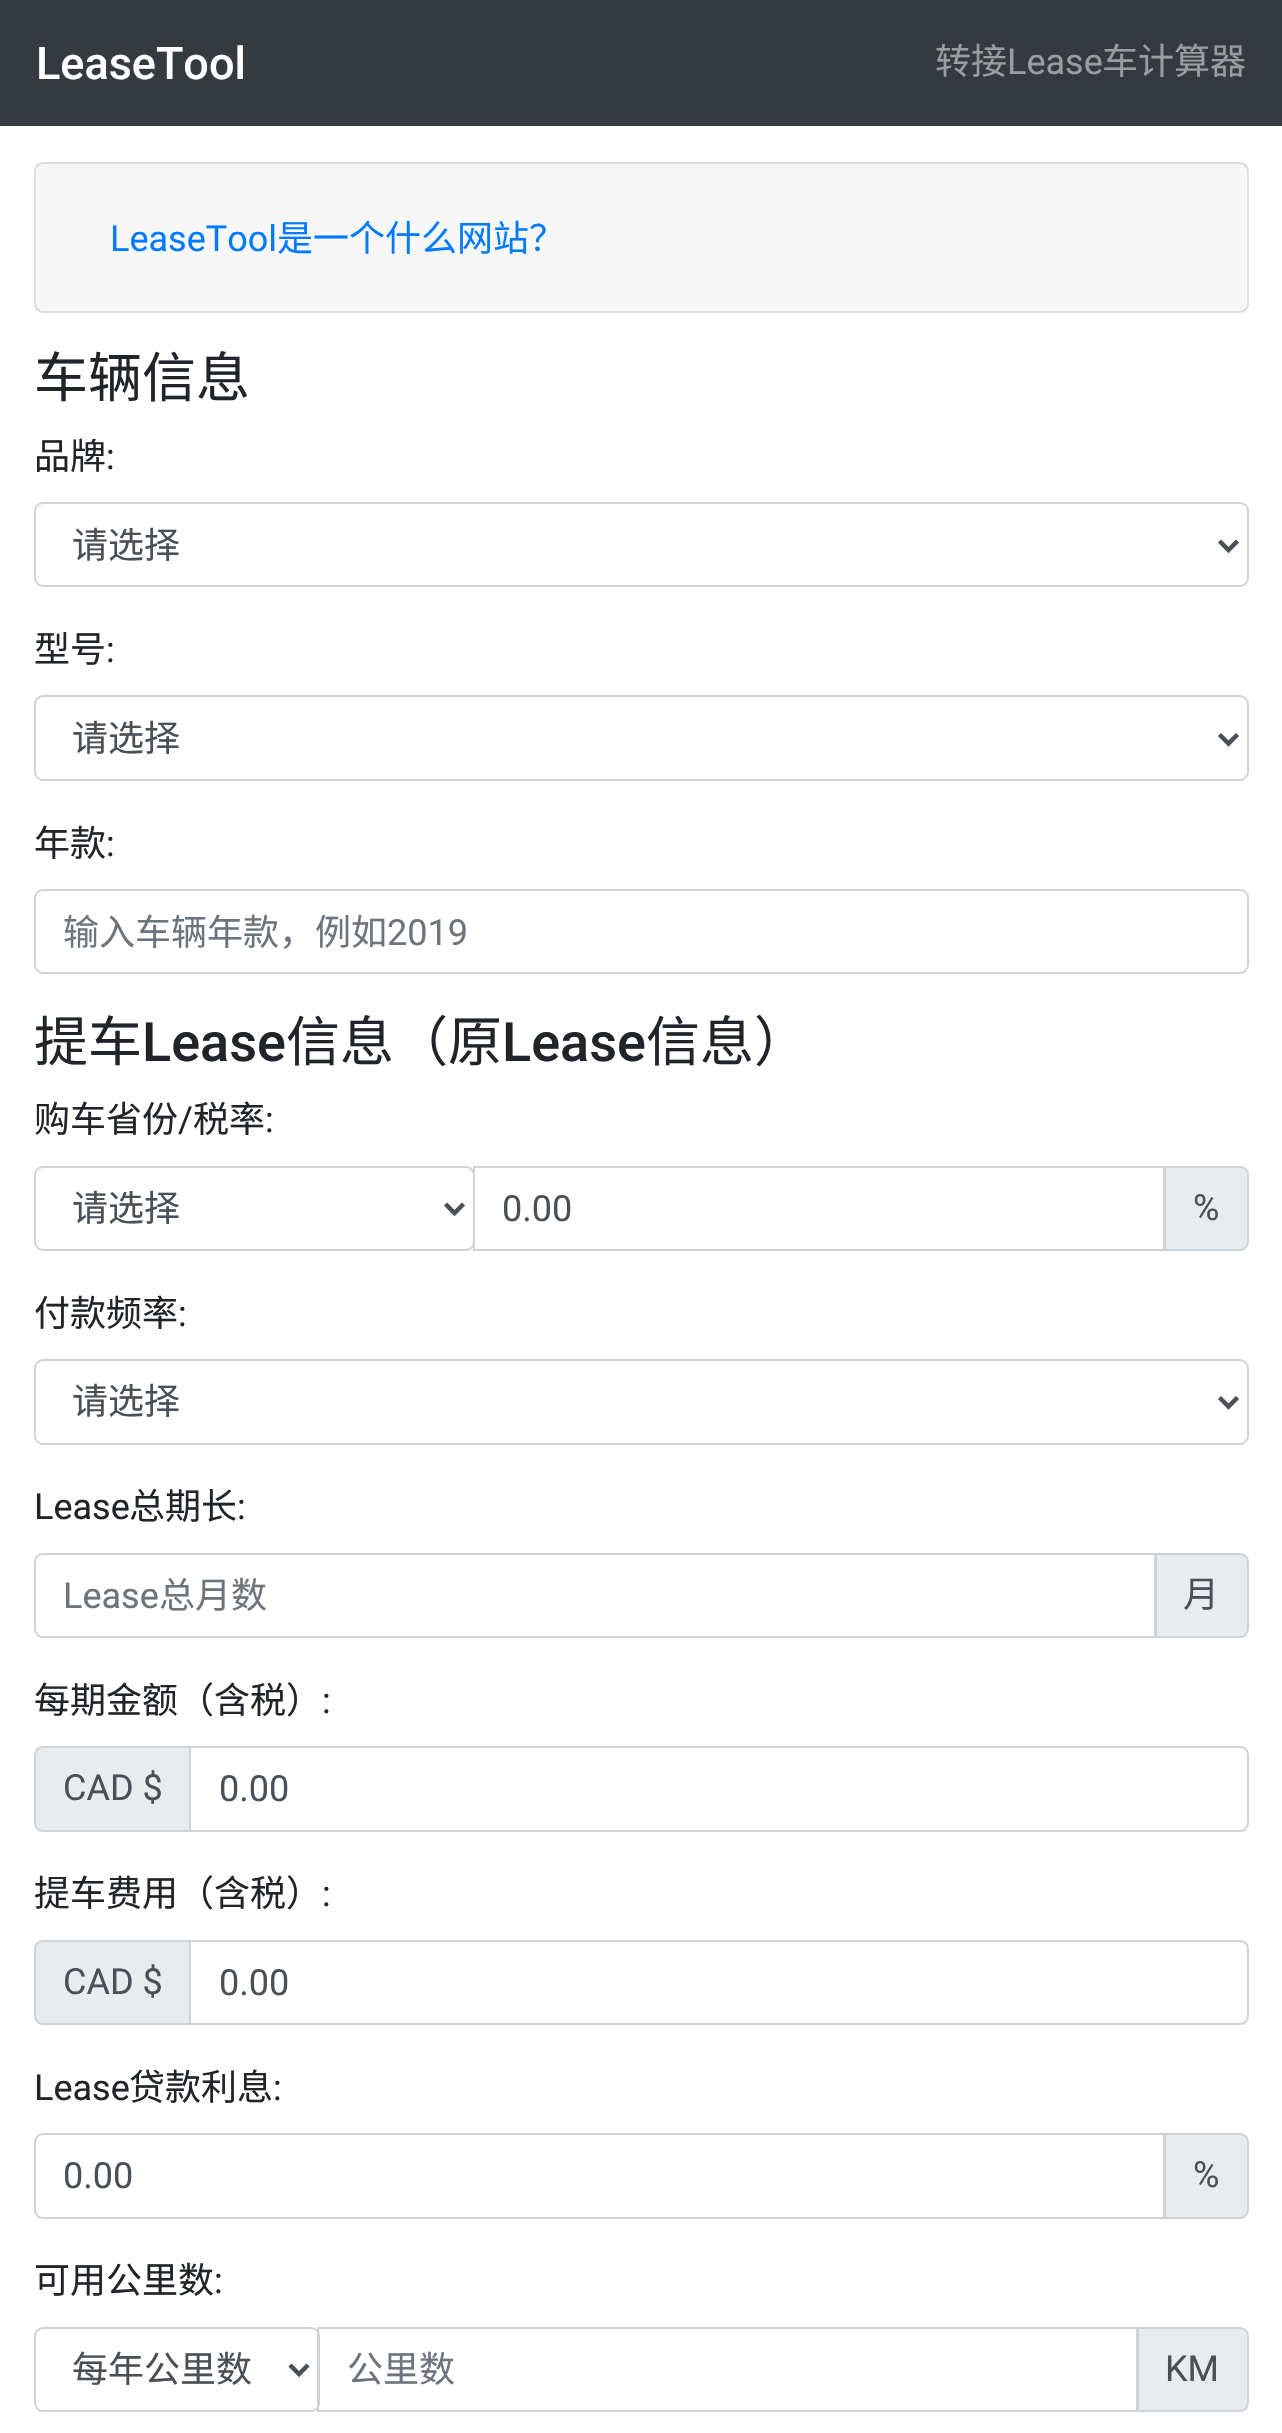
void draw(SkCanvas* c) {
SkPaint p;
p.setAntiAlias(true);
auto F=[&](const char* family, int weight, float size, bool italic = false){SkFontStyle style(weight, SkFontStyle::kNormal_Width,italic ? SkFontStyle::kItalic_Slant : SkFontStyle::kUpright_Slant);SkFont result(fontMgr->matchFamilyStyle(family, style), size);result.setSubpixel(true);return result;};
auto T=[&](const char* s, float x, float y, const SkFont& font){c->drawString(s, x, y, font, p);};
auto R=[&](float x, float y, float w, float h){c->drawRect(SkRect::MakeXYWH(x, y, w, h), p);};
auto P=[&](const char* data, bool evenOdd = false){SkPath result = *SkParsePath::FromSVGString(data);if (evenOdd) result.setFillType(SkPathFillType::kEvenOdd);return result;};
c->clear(0xffffffff);
p.setColor(0xff343a40);
R(0,0,1282,126);
auto f1 = F("Roboto",500,45);
p.setColor(0xffffffff);
T("LeaseTool",36,79,f1);
auto f2 = F("Noto Sans CJK SC",400,36);
p.setColor(0xff9a9da0);
T("转接",935,74,f2);
auto f3 = F("Roboto",400,36);
T("Lease",1007,74,f3);
T("车计算器",1102,74,f2);
p.setStroke(true);
p.setStrokeWidth(2);
p.setColor(0xffdfdfdf);
c->drawRoundRect(SkRect::MakeXYWH(35,163,1213,149),8,8,p);
p.setStroke(false);
p.setColor(0x08000000);
R(36,164,1211,147);
p.setColor(0xff007bff);
T("LeaseTool",110,251,f3);
T("是一个什么网站？",277,251,f2);
auto f4 = F("Noto Sans CJK SC",400,54);
p.setColor(0xff212529);
T("车辆信息",34,397,f4);
T("品牌",34,469,f2);
T(":",106,469,f3);
p.setStroke(true);
p.setColor(0xffced4da);
c->drawRoundRect(SkRect::MakeXYWH(35,503,1213,83),8,8,p);
p.setStrokeWidth(4.5);
p.setColor(0xff495057);
c->drawPath(P("M1219.5 541l9 9l9-9"),p);
p.setStroke(false);
T("请选择",72,558,f2);
p.setColor(0xff212529);
T("型号",34,662,f2);
T(":",106,662,f3);
p.setStroke(true);
p.setStrokeWidth(2);
p.setColor(0xffced4da);
c->drawRoundRect(SkRect::MakeXYWH(35,696,1213,84),8,8,p);
p.setStrokeWidth(4.5);
p.setColor(0xff495057);
c->drawPath(P("M1219.5 734.5l9 9l9-9"),p);
p.setStroke(false);
T("请选择",72,751,f2);
p.setColor(0xff212529);
T("年款",34,856,f2);
T(":",106,856,f3);
p.setStroke(true);
p.setStrokeWidth(2);
p.setColor(0xffced4da);
c->drawRoundRect(SkRect::MakeXYWH(35,890,1213,83),8,8,p);
p.setStroke(false);
p.setColor(0xff6c757d);
T("输入车辆年款，例如",63,945,f2);
T("2019",387,945,f3);
p.setColor(0xff212529);
T("提车",34,1061,f4);
auto f5 = F("Roboto",500,54);
T("Lease",142,1061,f5);
T("信息（原",286,1061,f4);
T("Lease",502,1061,f5);
T("信息）",646,1061,f4);
T("购车省份",34,1132,f2);
T("/",178,1132,f3);
T("税率",193,1132,f2);
T(":",265,1132,f3);
p.setStroke(true);
p.setColor(0xffced4da);
c->drawRoundRect(SkRect::MakeXYWH(35,1167,439,83),8,8,p);
p.setStrokeWidth(4.5);
p.setColor(0xff495057);
c->drawPath(P("M445.5 1204l9 9l9-9"),p);
p.setStroke(false);
T("请选择",72,1221,f2);
p.setColor(0xffe9ecef);
c->drawPath(P("M1164 1167h76c4.5 0 8 3.5 8 8v67c0 4.5-3.5 8-8 8h-76z"),p);
p.setStroke(true);
p.setStrokeWidth(2);
p.setColor(0xffced4da);
c->drawPath(P("M1164 1167h76c4.5 0 8 3.5 8 8v67c0 4.5-3.5 8-8 8h-76z"),p);
c->drawRect(SkRect::MakeXYWH(474,1167,691,83),p);
p.setStroke(false);
p.setColor(0xff495057);
T("0.00",502,1221,f3);
T("%",1193,1220,f3);
p.setColor(0xff212529);
T("付款频率",34,1326,f2);
T(":",178,1326,f3);
p.setStroke(true);
p.setColor(0xffced4da);
c->drawRoundRect(SkRect::MakeXYWH(35,1360,1213,84),8,8,p);
p.setStrokeWidth(4.5);
p.setColor(0xff495057);
c->drawPath(P("M1219.5 1397.5l9 9l9-9"),p);
p.setStroke(false);
T("请选择",72,1414,f2);
p.setColor(0xff212529);
T("Lease",34,1519,f3);
T("总期长",129,1519,f2);
T(":",237,1519,f3);
p.setColor(0xffe9ecef);
c->drawPath(P("M1155 1554h85c4.5 0 8 3.5 8 8v67c0 4.5-3.5 8-8 8h-85z"),p);
p.setStroke(true);
p.setStrokeWidth(2);
p.setColor(0xffced4da);
c->drawPath(P("M1155 1554h85c4.5 0 8 3.5 8 8v67c0 4.5-3.5 8-8 8h-85z"),p);
c->drawPath(P("M43 1554h1113v83h-1113c-4.5 0-8-3.5-8-8v-67c0-4.5 3.5-8 8-8z"),p);
p.setStroke(false);
p.setColor(0xff6c757d);
T("Lease",63,1608,f3);
T("总月数",159,1608,f2);
p.setColor(0xff495057);
T("月",1183,1607,f2);
p.setColor(0xff212529);
T("每期金额（含税）",34,1713,f2);
T(":",322,1713,f3);
p.setColor(0xffe9ecef);
c->drawPath(P("M43 1747h147v84h-147c-4.5 0-8-3.5-8-8v-68c0-4.5 3.5-8 8-8z"),p);
p.setStroke(true);
p.setColor(0xffced4da);
c->drawPath(P("M43 1747h147v84h-147c-4.5 0-8-3.5-8-8v-68c0-4.5 3.5-8 8-8z"),p);
p.setStroke(false);
p.setColor(0xff495057);
T("CAD $",63,1800,f3);
p.setStroke(true);
p.setColor(0xffced4da);
c->drawPath(P("M190 1747h1050c4.5 0 8 3.5 8 8v68c0 4.5-3.5 8-8 8h-1050z"),p);
p.setStroke(false);
p.setColor(0xff495057);
T("0.00",219,1801,f3);
p.setColor(0xff212529);
T("提车费用（含税）",34,1906,f2);
T(":",322,1906,f3);
p.setColor(0xffe9ecef);
c->drawPath(P("M43 1941h147v83h-147c-4.5 0-8-3.5-8-8v-67c0-4.5 3.5-8 8-8z"),p);
p.setStroke(true);
p.setColor(0xffced4da);
c->drawPath(P("M43 1941h147v83h-147c-4.5 0-8-3.5-8-8v-67c0-4.5 3.5-8 8-8z"),p);
p.setStroke(false);
p.setColor(0xff495057);
T("CAD $",63,1994,f3);
p.setStroke(true);
p.setColor(0xffced4da);
c->drawPath(P("M190 1941h1050c4.5 0 8 3.5 8 8v67c0 4.5-3.5 8-8 8h-1050z"),p);
p.setStroke(false);
p.setColor(0xff495057);
T("0.00",219,1995,f3);
p.setColor(0xff212529);
T("Lease",34,2100,f3);
T("贷款利息",129,2100,f2);
T(":",273,2100,f3);
p.setColor(0xffe9ecef);
c->drawPath(P("M1164 2134h76c4.5 0 8 3.5 8 8v68c0 4.5-3.5 8-8 8h-76z"),p);
p.setStroke(true);
p.setColor(0xffced4da);
c->drawPath(P("M1164 2134h76c4.5 0 8 3.5 8 8v68c0 4.5-3.5 8-8 8h-76z"),p);
c->drawPath(P("M43 2134h1122v84h-1122c-4.5 0-8-3.5-8-8v-68c0-4.5 3.5-8 8-8z"),p);
p.setStroke(false);
p.setColor(0xff495057);
T("0.00",63,2188,f3);
T("%",1193,2187,f3);
p.setColor(0xff212529);
T("可用公里数",34,2293,f2);
T(":",214,2293,f3);
p.setStroke(true);
p.setColor(0xffced4da);
c->drawRoundRect(SkRect::MakeXYWH(35,2328,284,83),8,8,p);
p.setStrokeWidth(4.5);
p.setColor(0xff495057);
c->drawPath(P("M290 2365l9 9l9-9"),p);
p.setStroke(false);
T("每年公里数",72,2382,f2);
p.setColor(0xffe9ecef);
c->drawPath(P("M1137 2328h103c4.5 0 8 3.5 8 8v67c0 4.5-3.5 8-8 8h-103z"),p);
p.setStroke(true);
p.setStrokeWidth(2);
p.setColor(0xffced4da);
c->drawPath(P("M1137 2328h103c4.5 0 8 3.5 8 8v67c0 4.5-3.5 8-8 8h-103z"),p);
c->drawRect(SkRect::MakeXYWH(318,2328,820,83),p);
p.setStroke(false);
p.setColor(0xff6c757d);
T("公里数",347,2382,f2);
p.setColor(0xff495057);
T("KM",1165,2381,f3);
}
